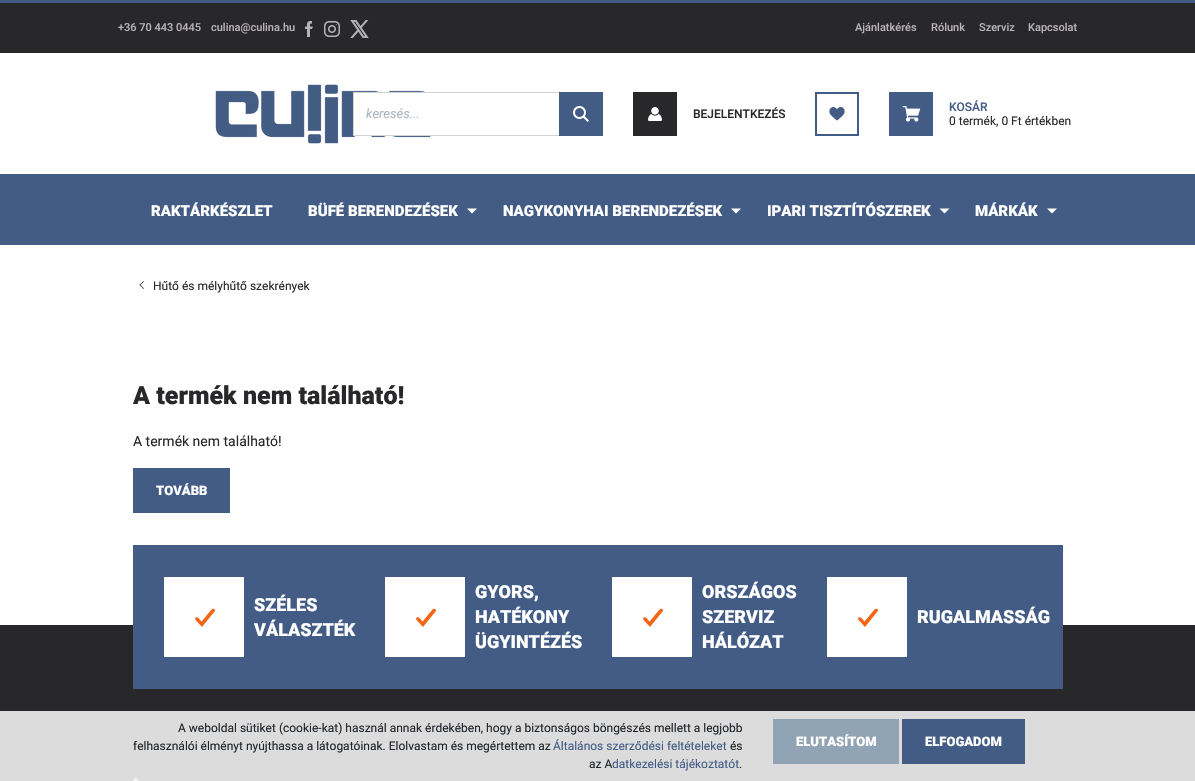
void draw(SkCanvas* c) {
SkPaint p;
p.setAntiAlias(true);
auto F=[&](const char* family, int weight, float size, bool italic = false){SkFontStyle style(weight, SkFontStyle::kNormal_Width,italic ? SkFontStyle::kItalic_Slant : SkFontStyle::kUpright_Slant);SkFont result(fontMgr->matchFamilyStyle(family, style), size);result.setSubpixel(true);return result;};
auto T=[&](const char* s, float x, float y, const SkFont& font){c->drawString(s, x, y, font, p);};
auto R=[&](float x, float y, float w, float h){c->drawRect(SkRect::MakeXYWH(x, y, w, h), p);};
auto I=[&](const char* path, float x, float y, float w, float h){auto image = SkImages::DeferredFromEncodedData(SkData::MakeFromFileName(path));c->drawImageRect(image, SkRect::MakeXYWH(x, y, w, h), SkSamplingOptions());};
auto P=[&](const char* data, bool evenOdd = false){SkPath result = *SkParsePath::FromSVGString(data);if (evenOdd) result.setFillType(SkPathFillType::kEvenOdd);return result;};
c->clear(0xffffffff);
p.setColor(0xff435c85);
R(0,0,1195,3);
p.setColor(0xff282729);
R(0,3,1195,50);
auto f1 = F("Roboto",500,11);
p.setColor(0xffb7b4b9);
T("+36 70 443 0445",118,31,f1);
T("culina@culina.hu",211,31,f1);
I("1.png",305,21,8,16);
I("2.png",324,21,16,16);
I("3.png",350,20,19,18);
T("Ajánlatkérés",855,31,f1);
T("Rólunk",931,31,f1);
T("Szerviz",979,31,f1);
T("Kapcsolat",1028,31,f1);
I("4.png",215,84,216,60);
p.setColor(0xff282729);
R(633,92,44,44);
I("5.png",648,107,14,14);
auto f2 = F("Roboto",500,12);
T("BEJELENTKEZÉS",693,118,f2);
p.setStroke(true);
p.setStrokeWidth(2);
p.setColor(0xff435c85);
c->drawRect(SkRect::MakeXYWH(816,93,42,42),p);
I("6.png",829,107,16,14);
p.setStroke(false);
R(889,92,44,44);
I("7.png",902,106,19,16);
T("KOSÁR",949,111,f2);
auto f3 = F("Roboto",400,12);
p.setColor(0xff282729);
T("0 termék, 0 Ft értékben",949,125,f3);
p.setColor(0xffffffff);
R(354,93,77,42);
p.setStroke(true);
p.setStrokeWidth(1);
p.setColor(0xffd3d3d3);
c->drawRect(SkRect::MakeXYWH(353.5,92.5,249,43),p);
auto f4 = F("Roboto",400,13,true);
p.setStroke(false);
p.setColor(0xffadb5bd);
T("keresés...",366,118,f4);
p.setColor(0xff435c85);
R(559,92,44,44);
I("8.png",573,106,16,16);
R(0,174,1195,71);
auto f5 = F("Roboto",900,15);
p.setColor(0xffffffff);
T("RAKTÁRKÉSZLET",151,216,f5);
T("BÜFÉ BERENDEZÉSEK",308,216,f5);
c->drawPath(P("M467 208.5h10l-5 5z"),p);
T("NAGYKONYHAI BERENDEZÉSEK",503,216,f5);
c->drawPath(P("M731 208.5h10l-5 5z"),p);
T("IPARI TISZTÍTÓSZEREK",767,216,f5);
c->drawPath(P("M939.5 208.5h10l-5 5z"),p);
T("MÁRKÁK",975,216,f5);
c->drawPath(P("M1047 208.5h10l-5 5z"),p);
p.setColor(0xff282729);
c->drawPath(P("M144 288.5l-.5 .5l-4-4l.5-.5z"),p);
c->drawPath(P("M144 281.5l-4 4l-.5-.5l4-4z"),p);
T("Hűtő és mélyhűtő szekrények",153,290,f3);
auto f6 = F("Roboto",900,25);
T("A termék nem található!",133,404,f6);
auto f7 = F("Roboto",400,14);
T("A termék nem található!",133,446,f7);
p.setColor(0xff435c85);
R(133,468,97,45);
auto f8 = F("Roboto",900,13);
p.setColor(0xffffffff);
T("TOVÁBB",156,495,f8);
p.setColor(0xff282729);
R(0,625,1195,86);
p.setColor(0xff435c85);
R(133,545,930,144);
p.setColor(0xffffffff);
R(164,577,80,80);
p.setColor(0xfff46618);
c->drawPath(P("M214 609c-.5-.5-2 0-2.5 .5l-10 12l-3-3.5c-.5-1-2-1-3-.5c-.5 .5-.5 1.5 0 2.5l6.5 7l12.5-15.5c1-.5 .5-2-.5-2.5z"),p);
auto f9 = F("Roboto",900,18);
p.setColor(0xffffffff);
T("SZÉLES",254,611,f9);
T("VÁLASZTÉK",254,636,f9);
R(385,577,80,80);
p.setColor(0xfff46618);
c->drawPath(P("M435 609c-.5-.5-2 0-2.5 .5l-10 12l-3-3.5c-.5-1-2-1-3-.5c-.5 .5-.5 1.5 0 2.5l6.5 7l12.5-15.5c1-.5 .5-2-.5-2.5z"),p);
p.setColor(0xffffffff);
T("GYORS,",475,598,f9);
T("HATÉKONY",475,623,f9);
T("ÜGYINTÉZÉS",475,648,f9);
R(612,577,80,80);
p.setColor(0xfff46618);
c->drawPath(P("M662 609c-.5-.5-2 0-2.5 .5l-10 12l-3-3.5c-.5-1-2-1-3-.5c-.5 .5-.5 1.5 0 2.5l6.5 7l12.5-15.5c1-.5 .5-2-.5-2.5z"),p);
p.setColor(0xffffffff);
T("ORSZÁGOS",702,598,f9);
T("SZERVIZ",702,623,f9);
T("HÁLÓZAT",702,648,f9);
R(827,577,80,80);
p.setColor(0xfff46618);
c->drawPath(P("M877 609c-.5-.5-2 0-2.5 .5l-10 12l-3-3.5c-.5-1-2-1-3-.5c-.5 .5-.5 1.5 0 2.5l6.5 7l12.5-15.5c1-.5 .5-2-.5-2.5z"),p);
p.setColor(0xffffffff);
T("RUGALMASSÁG",917,623,f9);
p.setColor(0xffdcdcdc);
R(0,711,1195,70);
I("9.png",133,778,6,3);
p.setColor(0xff212529);
T("A weboldal sütiket (cookie-kat) használ annak érdekében, hogy a biztonságos böngészés mellett a legjobb",178,732,f3);
T("felhasználói élményt nyújthassa a látogatóinak. Elolvastam és megértettem az",133,750,f3);
p.setColor(0xff435c85);
T("Általános szerződési feltételeket",553,750,f3);
p.setColor(0xff212529);
T("és",730,750,f3);
T("az A",589,768,f3);
p.setColor(0xff435c85);
T("datkezelési tájékoztatót",612,768,f3);
p.setColor(0xff212529);
T(".",739,768,f3);
p.setColor(0xff91a4b6);
R(773,719,126,45);
p.setColor(0xffffffff);
T("ELUTASÍTOM",796,746,f8);
p.setColor(0xff435c85);
R(902,719,123,45);
p.setColor(0xffffffff);
T("ELFOGADOM",925,746,f8);
}
